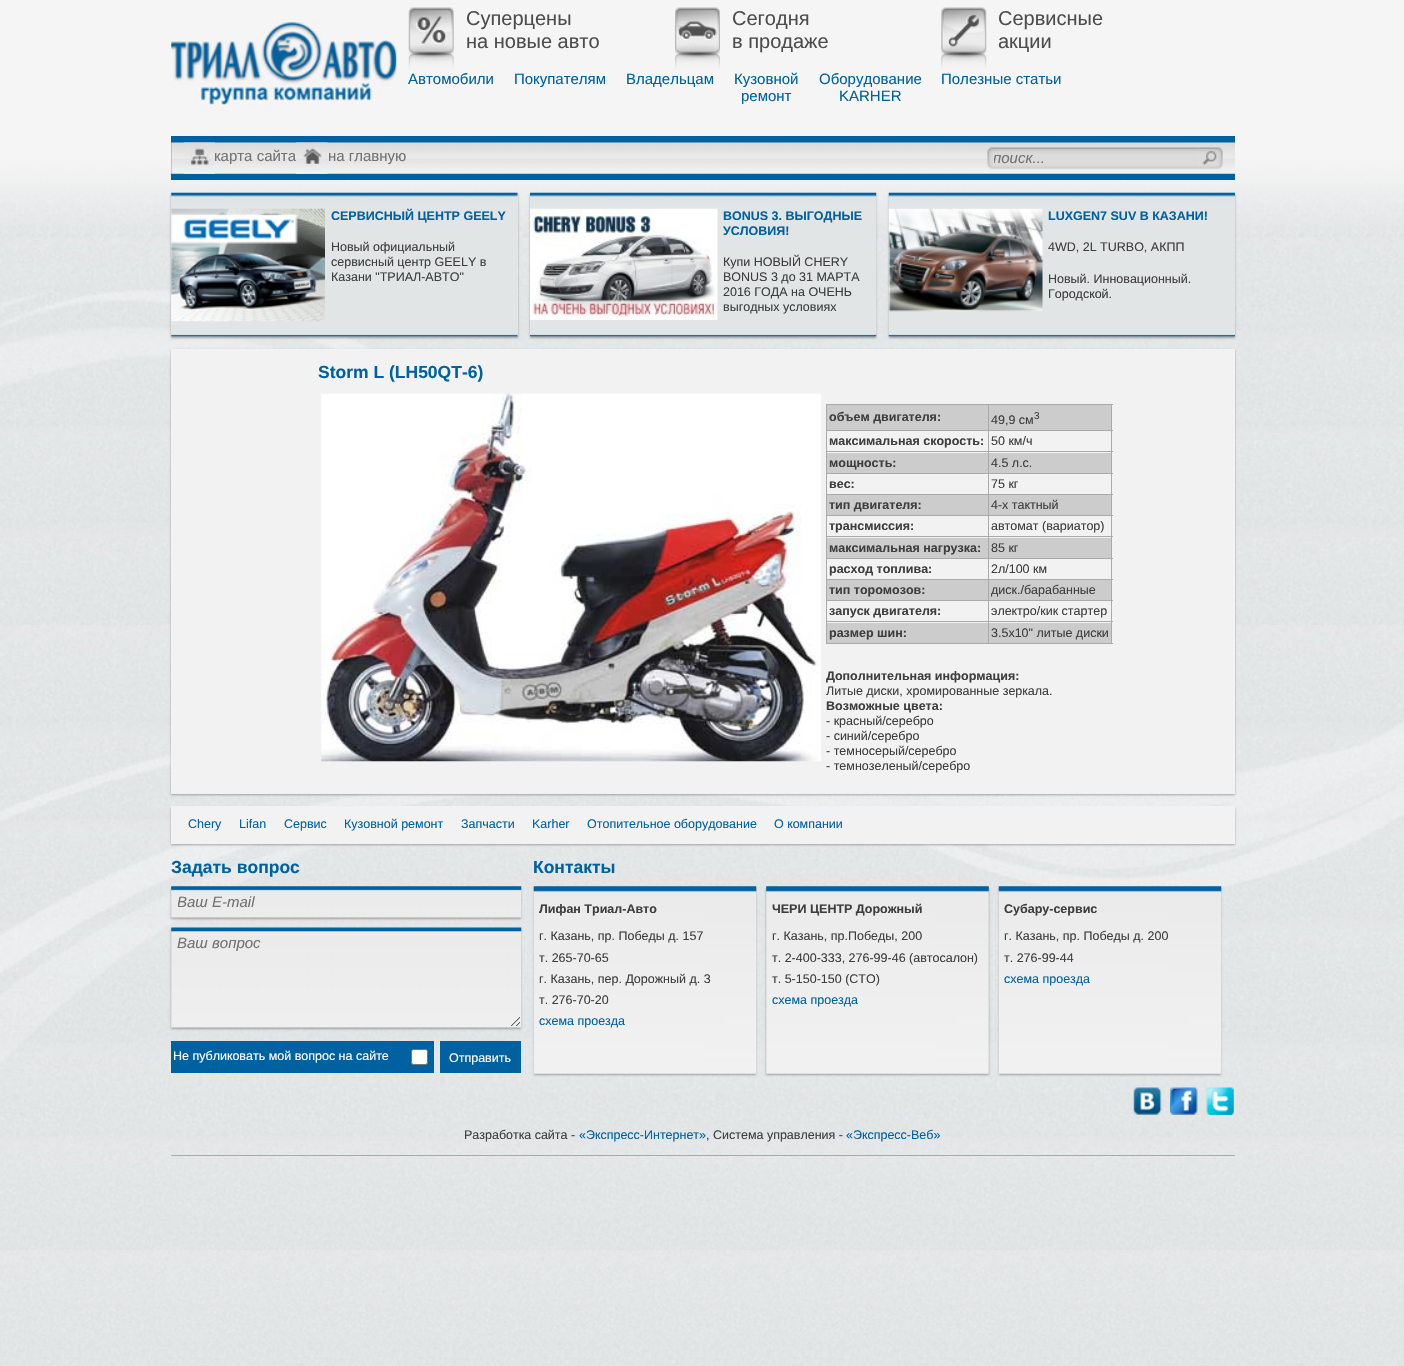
void draw(SkCanvas* c) {
SkPaint p;
p.setAntiAlias(true);
auto F=[&](const char* family, int weight, float size, bool italic = false){SkFontStyle style(weight, SkFontStyle::kNormal_Width,italic ? SkFontStyle::kItalic_Slant : SkFontStyle::kUpright_Slant);SkFont result(fontMgr->matchFamilyStyle(family, style), size);result.setSubpixel(true);return result;};
auto T=[&](const char* s, float x, float y, const SkFont& font){c->drawString(s, x, y, font, p);};
auto R=[&](float x, float y, float w, float h){c->drawRect(SkRect::MakeXYWH(x, y, w, h), p);};
auto I=[&](const char* path, float x, float y, float w, float h){auto image = SkImages::DeferredFromEncodedData(SkData::MakeFromFileName(path));c->drawImageRect(image, SkRect::MakeXYWH(x, y, w, h), SkSamplingOptions());};
c->clear(0xffffffff);
I("1.png",0,1162,1404,204);
I("2.png",0,0,1404,238);
I("3.png",0,237,1404,926);
I("4.png",171,20,226,90);
I("5.png",408,7,46,63);
auto f1 = F("Liberation Sans",400,20);
p.setColor(0xff4d4d4d);
T("Суперцены",466,25,f1);
T("на новые авто",466,48,f1);
I("6.png",675,7,45,63);
T("Сегодня",732,25,f1);
T("в продаже",732,48,f1);
I("7.png",941,7,46,63);
T("Сервисные",998,25,f1);
T("акции",998,48,f1);
auto f2 = F("Liberation Sans",400,15);
p.setColor(0xff0061a0);
T("Автомобили",408,84,f2);
T("Покупателям",514,84,f2);
T("Владельцам",626,84,f2);
T("Кузовной",734,84,f2);
T("ремонт",741,101,f2);
T("Оборудование",819,84,f2);
T("KARHER",839,101,f2);
T("Полезные статьи",941,84,f2);
R(171,136,1064,44);
I("8.png",171,142,1064,32);
I("9.png",183,142,32,32);
p.setColor(0xff727272);
T("карта сайта",214,161,f2);
I("10.png",296,142,32,32);
T("на главную",328,161,f2);
I("11.png",987,147,212,22);
c->save();
c->clipRect(SkRect::MakeXYWH(994,150,205,18));
auto f3 = F("Liberation Sans",400,15,true);
T("поиск...",993,163,f3);
c->restore();
I("12.png",1198,147,25,22);
p.setColor(0x4d000000);
p.setMaskFilter(SkMaskFilter::MakeBlur(kNormal_SkBlurStyle, 1));
c->drawRect(SkRect::MakeXYWH(171,194,347,144),p);
p.setMaskFilter(nullptr);
p.setColor(0xffe2e5e6);
R(171,193,347,143);
I("13.png",171,192,347,145);
I("14.png",171,208,154,114);
auto f4 = F("Liberation Sans",700,12.5);
p.setColor(0xff0061a0);
T("СЕРВИСНЫЙ ЦЕНТР GEELY",331,220,f4);
auto f5 = F("Liberation Sans",400,12.5);
p.setColor(0xff3e3e3e);
T("Новый официальный",331,251,f5);
T("сервисный центр GEELY в",331,266,f5);
T("Казани \"ТРИАЛ-АВТО\"",331,281,f5);
p.setColor(0x4d000000);
p.setMaskFilter(SkMaskFilter::MakeBlur(kNormal_SkBlurStyle, 1));
c->drawRect(SkRect::MakeXYWH(530,194,346,144),p);
p.setMaskFilter(nullptr);
I("15.png",530,192,347,145);
I("16.png",530,208,188,112);
p.setColor(0xff0061a0);
T("BONUS 3. ВЫГОДНЫЕ",723,220,f4);
T("УСЛОВИЯ!",723,235,f4);
p.setColor(0xff3e3e3e);
T("Купи НОВЫЙ CHERY",723,266,f5);
T("BONUS 3 до 31 МАРТА",723,281,f5);
T("2016 ГОДА на ОЧЕНЬ",723,296,f5);
T("выгодных условиях",723,311,f5);
p.setColor(0x4d000000);
p.setMaskFilter(SkMaskFilter::MakeBlur(kNormal_SkBlurStyle, 1));
c->drawRect(SkRect::MakeXYWH(889,194,346,144),p);
p.setMaskFilter(nullptr);
I("17.png",888,192,347,145);
I("18.png",888,208,155,104);
p.setColor(0xff0061a0);
T("LUXGEN7 SUV В КАЗАНИ!",1048,220,f4);
p.setColor(0xff3e3e3e);
T("4WD, 2L TURBО, AКПП",1048,251,f5);
T("Нoвый. Иннoвaциoнный.",1048,283,f5);
T("Гoрoдскoй.",1048,298,f5);
p.setColor(0x4d000000);
p.setMaskFilter(SkMaskFilter::MakeBlur(kNormal_SkBlurStyle, 1));
c->drawRect(SkRect::MakeXYWH(171,350,1064,445),p);
p.setMaskFilter(nullptr);
p.setColor(0xfff2f2f2);
R(171,349,1064,445);
auto f6 = F("Liberation Sans",700,17.5);
p.setColor(0xff0061a0);
T("Storm L (LH50QT-6)",318,378,f6);
I("19.png",321,393,500,369);
p.setColor(0xffaaaaaa);
R(826,404,287,1);
R(1111,404,1,240);
R(826,643,287,1);
R(826,404,1,240);
p.setColor(0xffcccccc);
R(827,405,284,25);
p.setColor(0xff3e3e3e);
T("объем двигателя:",829,421,f4);
p.setColor(0xffaaaaaa);
R(988,430,125,1);
R(988,451,125,1);
p.setColor(0xffcccccc);
R(827,453,284,20);
p.setColor(0xffaaaaaa);
R(988,473,125,1);
R(988,494,125,1);
p.setColor(0xffcccccc);
R(827,495,284,20);
p.setColor(0xffaaaaaa);
R(988,515,125,1);
R(988,536,125,1);
p.setColor(0xffcccccc);
R(827,538,284,20);
p.setColor(0xffaaaaaa);
R(988,558,125,1);
R(988,579,125,1);
p.setColor(0xffcccccc);
R(827,580,284,20);
p.setColor(0xffaaaaaa);
R(988,600,125,1);
R(988,621,125,1);
p.setColor(0xffcccccc);
R(827,623,284,20);
p.setColor(0xffaaaaaa);
R(988,621,1,23);
R(826,621,163,1);
R(988,600,1,23);
R(826,600,163,1);
R(988,579,1,22);
R(826,579,163,1);
R(988,558,1,22);
R(826,558,163,1);
R(988,536,1,23);
R(826,536,163,1);
R(988,515,1,23);
R(826,515,163,1);
R(988,494,1,22);
R(826,494,163,1);
R(988,473,1,22);
R(826,473,163,1);
R(988,451,1,23);
R(826,451,163,1);
R(988,430,1,23);
R(826,430,163,1);
R(988,404,1,27);
p.setColor(0xff3e3e3e);
T("49,9 см",991,424,f5);
auto f7 = F("Liberation Sans",400,10);
T("3",1034,419,f7);
T("максимальная скорость:",829,445,f4);
T("50 км/ч",991,445,f5);
T("мощность:",829,467,f4);
T("4.5 л.с.",991,467,f5);
T("вес:",829,488,f4);
T("75 кг",991,488,f5);
T("тип двигателя:",829,509,f4);
T("4-х тактный",991,509,f5);
T("трансмиссия:",829,530,f4);
T("автомат (вариатор)",991,530,f5);
T("максимальная нагрузка:",829,552,f4);
T("85 кг",991,552,f5);
T("расход топлива:",829,573,f4);
T("2л/100 км",991,573,f5);
T("тип торомозов:",829,594,f4);
T("диск./барабанные",991,594,f5);
T("запуск двигателя:",829,615,f4);
T("электро/кик стартер",991,615,f5);
T("размер шин:",829,637,f4);
T("3.5x10\" литые диски",991,637,f5);
T("Дополнительная информация:",826,680,f4);
T("Литые диски, хромированные зеркала.",826,695,f5);
T("Возможные цвета:",826,710,f4);
T("- красный/серебро",826,725,f5);
T("- синий/серебро",826,740,f5);
T("- темносерый/серебро",826,755,f5);
T("- темнозеленый/серебро",826,770,f5);
p.setColor(0x4d000000);
p.setMaskFilter(SkMaskFilter::MakeBlur(kNormal_SkBlurStyle, 1));
c->drawRect(SkRect::MakeXYWH(171,808,1064,37),p);
p.setMaskFilter(nullptr);
p.setColor(0xfff2f2f2);
R(171,806,1064,38);
p.setColor(0xff0061a0);
T("Chery",188,828,f5);
T("Lifan",239,828,f5);
T("Сервис",284,828,f5);
T("Кузовной ремонт",344,828,f5);
T("Запчасти",461,828,f5);
T("Karher",532,828,f5);
T("Отопительное оборудование",587,828,f5);
T("О компании",774,828,f5);
T("Задать вопрос",171,873,f6);
p.setColor(0x4d000000);
p.setMaskFilter(SkMaskFilter::MakeBlur(kNormal_SkBlurStyle, 1));
c->drawRect(SkRect::MakeXYWH(171,888,350,31),p);
p.setMaskFilter(nullptr);
I("20.png",171,886,351,32);
c->save();
c->clipRect(SkRect::MakeXYWH(178,894,337,17));
p.setColor(0xff727272);
T("Ваш E-mail",177,907,f3);
c->restore();
p.setColor(0x4d000000);
p.setMaskFilter(SkMaskFilter::MakeBlur(kNormal_SkBlurStyle, 1));
c->drawRect(SkRect::MakeXYWH(171,929,350,100),p);
p.setMaskFilter(nullptr);
I("21.png",171,927,351,101);
p.setColor(0xff727272);
T("Ваш вопрос",177,948,f3);
p.setColor(0xff0061a0);
R(171,1041,263,32);
p.setColor(0xffffffff);
T("Не публиковать мой вопрос на сайте",173,1060,f5);
c->drawRoundRect(SkRect::MakeXYWH(411.5,1049.5,16,15),2,2,p);
p.setStroke(true);
p.setStrokeWidth(1);
p.setColor(0xff767676);
c->drawRoundRect(SkRect::MakeXYWH(411.5,1049.5,16,15),2,2,p);
p.setStroke(false);
p.setColor(0xff0061a0);
R(440,1041,81,32);
p.setColor(0xffffffff);
T("Отправить",449,1062,f5);
p.setColor(0xff0061a0);
T("Контакты",533,873,f6);
p.setColor(0x4d000000);
p.setMaskFilter(SkMaskFilter::MakeBlur(kNormal_SkBlurStyle, 1));
c->drawRect(SkRect::MakeXYWH(534,888,222,187),p);
p.setMaskFilter(nullptr);
I("22.png",533,886,224,188);
p.setColor(0xff3e3e3e);
T("Лифан Триал-Авто",539,913,f4);
T("г. Казань, пр. Победы д. 157",539,940,f5);
T("т. 265-70-65",539,962,f5);
T("г. Казань, пер. Дорожный д. 3",539,983,f5);
T("т. 276-70-20",539,1004,f5);
p.setColor(0xff0061a0);
T("схема проезда",539,1025,f5);
p.setColor(0x4d000000);
p.setMaskFilter(SkMaskFilter::MakeBlur(kNormal_SkBlurStyle, 1));
c->drawRect(SkRect::MakeXYWH(766,888,223,187),p);
p.setMaskFilter(nullptr);
I("23.png",766,886,223,188);
p.setColor(0xff3e3e3e);
T("ЧЕРИ ЦЕНТР Дорожный",772,913,f4);
T("г. Казань, пр.Победы, 200",772,940,f5);
T("т. 2-400-333, 276-99-46 (автосалон)",772,962,f5);
T("т. 5-150-150 (СТО)",772,983,f5);
p.setColor(0xff0061a0);
T("схема проезда",772,1004,f5);
p.setColor(0x4d000000);
p.setMaskFilter(SkMaskFilter::MakeBlur(kNormal_SkBlurStyle, 1));
c->drawRect(SkRect::MakeXYWH(999,888,222,187),p);
p.setMaskFilter(nullptr);
I("24.png",998,886,224,188);
p.setColor(0xff3e3e3e);
T("Субару-сервис",1004,913,f4);
T("г. Казань, пр. Победы д. 200",1004,940,f5);
T("т. 276-99-44",1004,962,f5);
p.setColor(0xff0061a0);
T("схема проезда",1004,983,f5);
I("25.png",1133,1087,29,28);
I("26.png",1170,1087,28,28);
I("27.png",1206,1087,28,28);
p.setColor(0xffaaaaaa);
R(171,1155,1064,1);
p.setColor(0xff3e3e3e);
T("Разработка сайта -",464,1139,f5);
p.setColor(0xff0061a0);
T("«Экспресс-Интернет»",579,1139,f5);
p.setColor(0xff3e3e3e);
T(", Система управления -",706,1139,f5);
p.setColor(0xff0061a0);
T("«Экспресс-Веб»",846,1139,f5);
}
